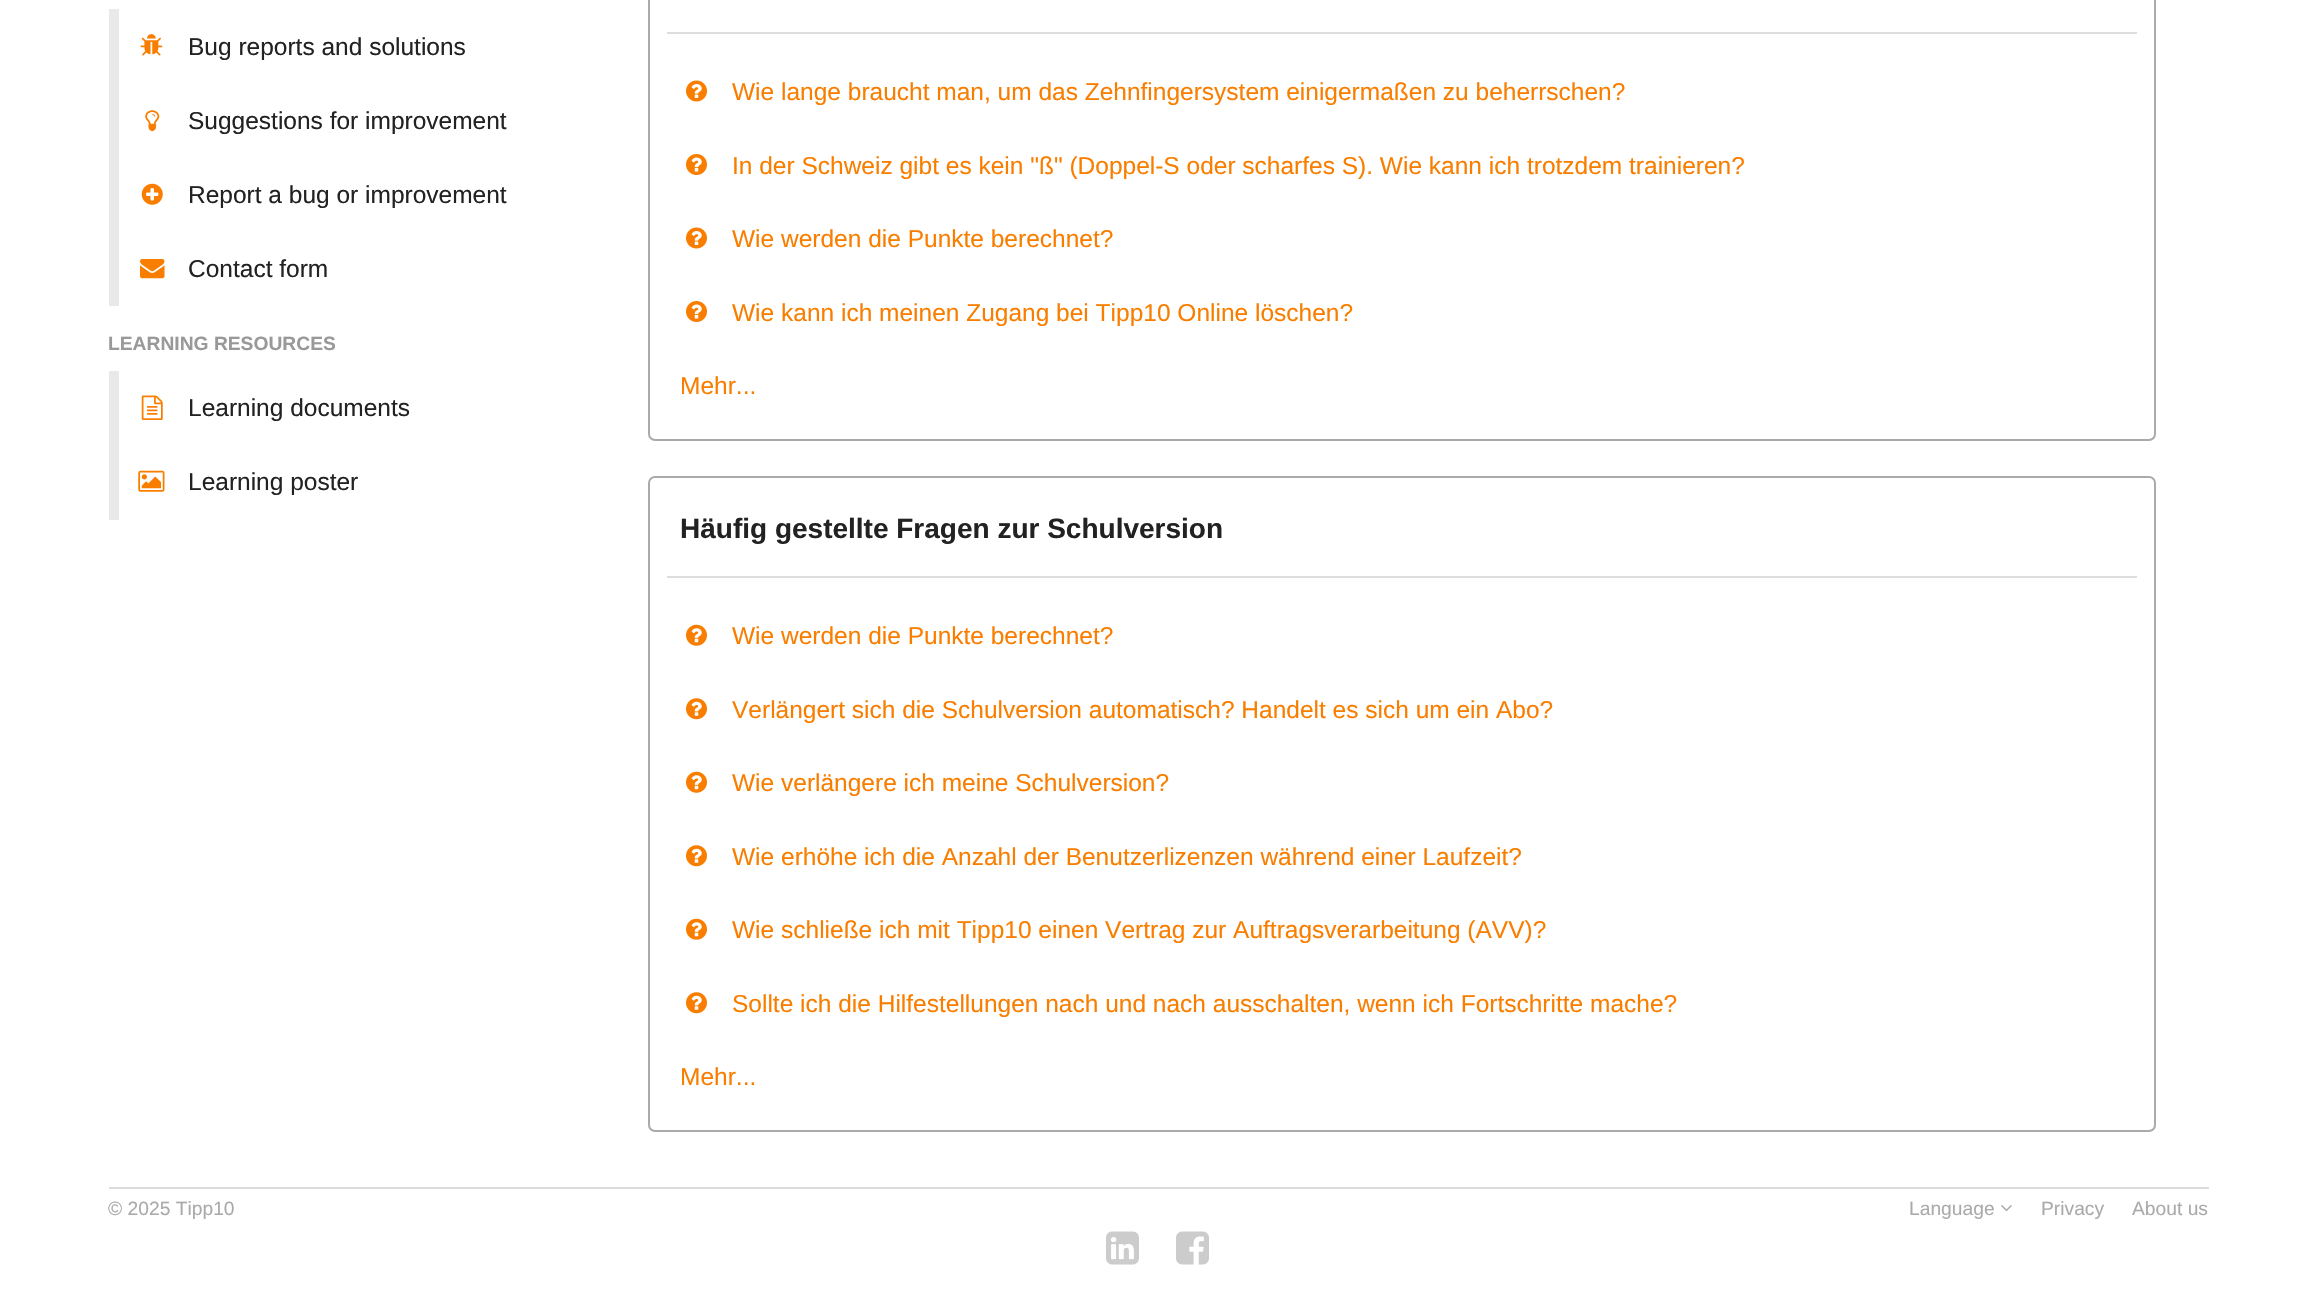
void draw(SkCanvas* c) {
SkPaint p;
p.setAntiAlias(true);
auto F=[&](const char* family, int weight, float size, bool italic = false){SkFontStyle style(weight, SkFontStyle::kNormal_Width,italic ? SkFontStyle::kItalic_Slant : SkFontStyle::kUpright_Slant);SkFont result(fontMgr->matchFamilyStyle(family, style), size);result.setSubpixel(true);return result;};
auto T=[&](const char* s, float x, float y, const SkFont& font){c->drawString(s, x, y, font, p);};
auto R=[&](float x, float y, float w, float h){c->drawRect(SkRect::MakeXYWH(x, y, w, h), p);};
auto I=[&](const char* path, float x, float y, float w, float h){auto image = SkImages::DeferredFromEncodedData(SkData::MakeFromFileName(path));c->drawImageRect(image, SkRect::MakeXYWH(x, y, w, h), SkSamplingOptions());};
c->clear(0xffffffff);
p.setColor(0xffe9e9e9);
R(109,9,10,297);
I("1.png",140,34,23,22);
auto f1 = F("Liberation Sans",400,24.5);
p.setColor(0xff222222);
T("Bug reports and solutions",188,55,f1);
I("2.png",145,110,15,22);
T("Suggestions for improvement",188,129,f1);
I("3.png",141,183,22,22);
T("Report a bug or improvement",188,203,f1);
I("4.png",140,259,25,20);
T("Contact form",188,277,f1);
c->save();
c->clipRect(SkRect::MakeXYWH(109,0,504,567));
auto f2 = F("Liberation Sans",700,19.25);
p.setColor(0xff999999);
T("LEARNING RESOURCES",108,350,f2);
c->restore();
p.setColor(0xffe9e9e9);
R(109,371,10,149);
I("5.png",141,395,22,25);
p.setColor(0xff222222);
T("Learning documents",188,416,f1);
I("6.png",138,470,27,22);
T("Learning poster",188,490,f1);
p.setStroke(true);
p.setStrokeWidth(2);
p.setColor(0xffaaaaaa);
c->drawRoundRect(SkRect::MakeXYWH(649,-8,1506,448),6,6,p);
p.setStroke(false);
p.setColor(0xffdddddd);
R(667,32,1470,2);
I("7.png",686,80,21,22);
p.setColor(0xfff97e00);
T("Wie lange braucht man, um das Zehnfingersystem einigermaßen zu beherrschen?",732,100,f1);
I("8.png",686,154,21,21);
T("In der Schweiz gibt es kein \"ß\" (Doppel-S oder scharfes S). Wie kann ich trotzdem trainieren?",732,174,f1);
I("7.png",686,227,21,22);
T("Wie werden die Punkte berechnet?",732,247,f1);
I("8.png",686,301,21,21);
T("Wie kann ich meinen Zugang bei Tipp10 Online löschen?",732,321,f1);
T("Mehr...",680,394,f1);
p.setStroke(true);
p.setColor(0xffaaaaaa);
c->drawRoundRect(SkRect::MakeXYWH(649,477,1506,654),6,6,p);
p.setStroke(false);
p.setColor(0xffdddddd);
R(667,576,1470,2);
auto f3 = F("Liberation Sans",700,28);
p.setColor(0xff222222);
T("Häufig gestellte Fragen zur Schulversion",680,538,f3);
I("9.png",686,624,21,22);
p.setColor(0xfff97e00);
T("Wie werden die Punkte berechnet?",732,644,f1);
I("10.png",686,698,21,22);
T("Verlängert sich die Schulversion automatisch? Handelt es sich um ein Abo?",732,718,f1);
I("9.png",686,771,21,22);
T("Wie verlängere ich meine Schulversion?",732,791,f1);
I("10.png",686,845,21,22);
T("Wie erhöhe ich die Anzahl der Benutzerlizenzen während einer Laufzeit?",732,865,f1);
I("9.png",686,918,21,22);
T("Wie schließe ich mit Tipp10 einen Vertrag zur Auftragsverarbeitung (AVV)?",732,938,f1);
I("10.png",686,992,21,22);
T("Sollte ich die Hilfestellungen nach und nach ausschalten, wenn ich Fortschritte mache?",732,1012,f1);
T("Mehr...",680,1085,f1);
p.setColor(0xffdddddd);
R(109,1187,2100,2);
auto f4 = F("Liberation Sans",400,19.25);
p.setColor(0xffaaaaaa);
T("© 2025 Tipp10",108,1215,f4);
T("Language",1909,1215,f4);
I("11.png",2001,1205,11,7);
T("Privacy",2041,1215,f4);
T("About us",2132,1215,f4);
I("12.png",1106,1231,33,34);
I("13.png",1176,1231,33,34);
}
